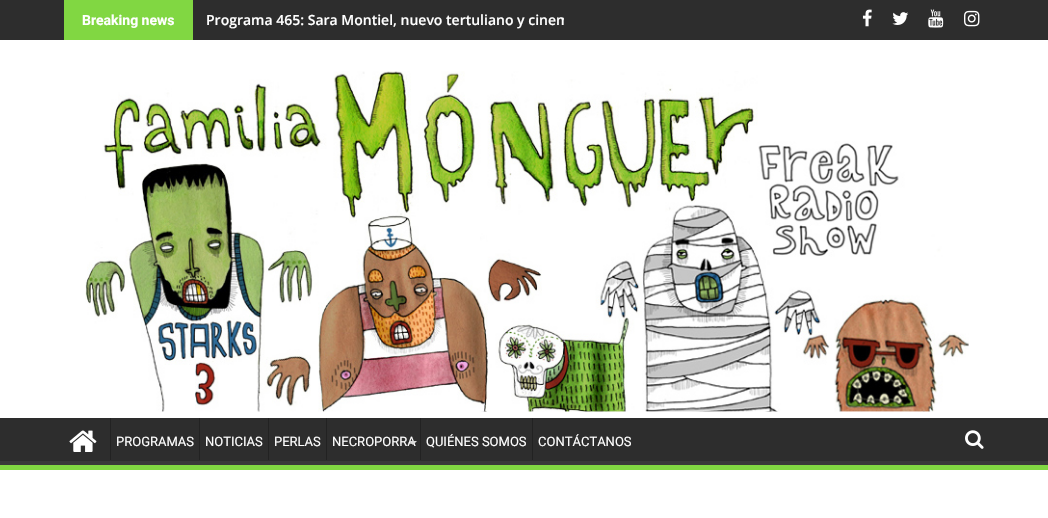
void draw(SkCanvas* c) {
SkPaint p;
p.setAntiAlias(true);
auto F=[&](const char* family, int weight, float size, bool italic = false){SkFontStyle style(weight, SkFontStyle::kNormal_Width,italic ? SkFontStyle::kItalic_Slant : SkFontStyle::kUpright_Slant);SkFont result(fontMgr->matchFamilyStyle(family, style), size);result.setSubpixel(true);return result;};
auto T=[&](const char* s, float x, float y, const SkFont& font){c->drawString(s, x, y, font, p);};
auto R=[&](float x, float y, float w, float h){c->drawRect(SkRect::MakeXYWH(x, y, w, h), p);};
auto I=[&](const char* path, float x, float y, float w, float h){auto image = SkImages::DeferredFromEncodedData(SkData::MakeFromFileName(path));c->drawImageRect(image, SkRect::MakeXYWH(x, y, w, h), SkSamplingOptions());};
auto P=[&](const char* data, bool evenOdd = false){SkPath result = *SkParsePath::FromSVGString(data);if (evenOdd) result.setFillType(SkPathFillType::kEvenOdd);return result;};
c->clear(0xffffffff);
p.setColor(0xff2d2d2d);
R(0,0,1048,40);
p.setColor(0xff81d742);
R(64,0,129,40);
auto f1 = F("Roboto",700,14);
p.setColor(0xffffffff);
T("Breaking news",82,25,f1);
c->save();
c->clipRect(SkRect::MakeXYWH(193,0,371,40));
auto f2 = F("Open Sans",600,14);
T("Programa 465: Sara Montiel, nuevo tertuliano y cinem",206,25,f2);
c->restore();
I("1.png",862,9,10,18);
I("2.png",892,12,17,13);
I("3.png",928,9,16,19);
I("4.png",964,10,16,17);
I("5.png",85,71,884,341);
p.setColor(0xff2d2d2d);
R(0,418,1048,43);
c->save();
c->clipRect(SkRect::MakeXYWH(0,418,1048,47));
p.setColor(0xff393939);
c->drawPath(P("M-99 319h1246v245h-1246zm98 93h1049v40c0 1 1 9-1 9h-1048l-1-1v-48z",true),p);
c->restore();
p.setColor(0xff81d742);
R(0,465,1048,5);
I("6.png",69,430,28,22);
p.setColor(0xff222222);
R(110,418,1,42);
auto f3 = F("Roboto",400,13);
p.setColor(0xffffffff);
T("PROGRAMAS",116,446,f3);
p.setColor(0xff222222);
R(199,418,1,42);
p.setColor(0xffffffff);
T("NOTICIAS",205,446,f3);
p.setColor(0xff222222);
R(268,418,1,42);
p.setColor(0xffffffff);
T("PERLAS",274,446,f3);
p.setColor(0xff222222);
R(326,418,1,42);
p.setColor(0xffffffff);
T("NECROPORRA",332,446,f3);
p.setColor(0xffdddddd);
c->drawPath(P("M409 441h8l-4 4z"),p);
p.setColor(0xff222222);
R(420,418,1,42);
p.setColor(0xffffffff);
T("QUIÉNES SOMOS",426,446,f3);
p.setColor(0xff222222);
R(532,418,1,42);
p.setColor(0xffffffff);
T("CONTÁCTANOS",538,446,f3);
I("7.png",965,430,19,19);
}
